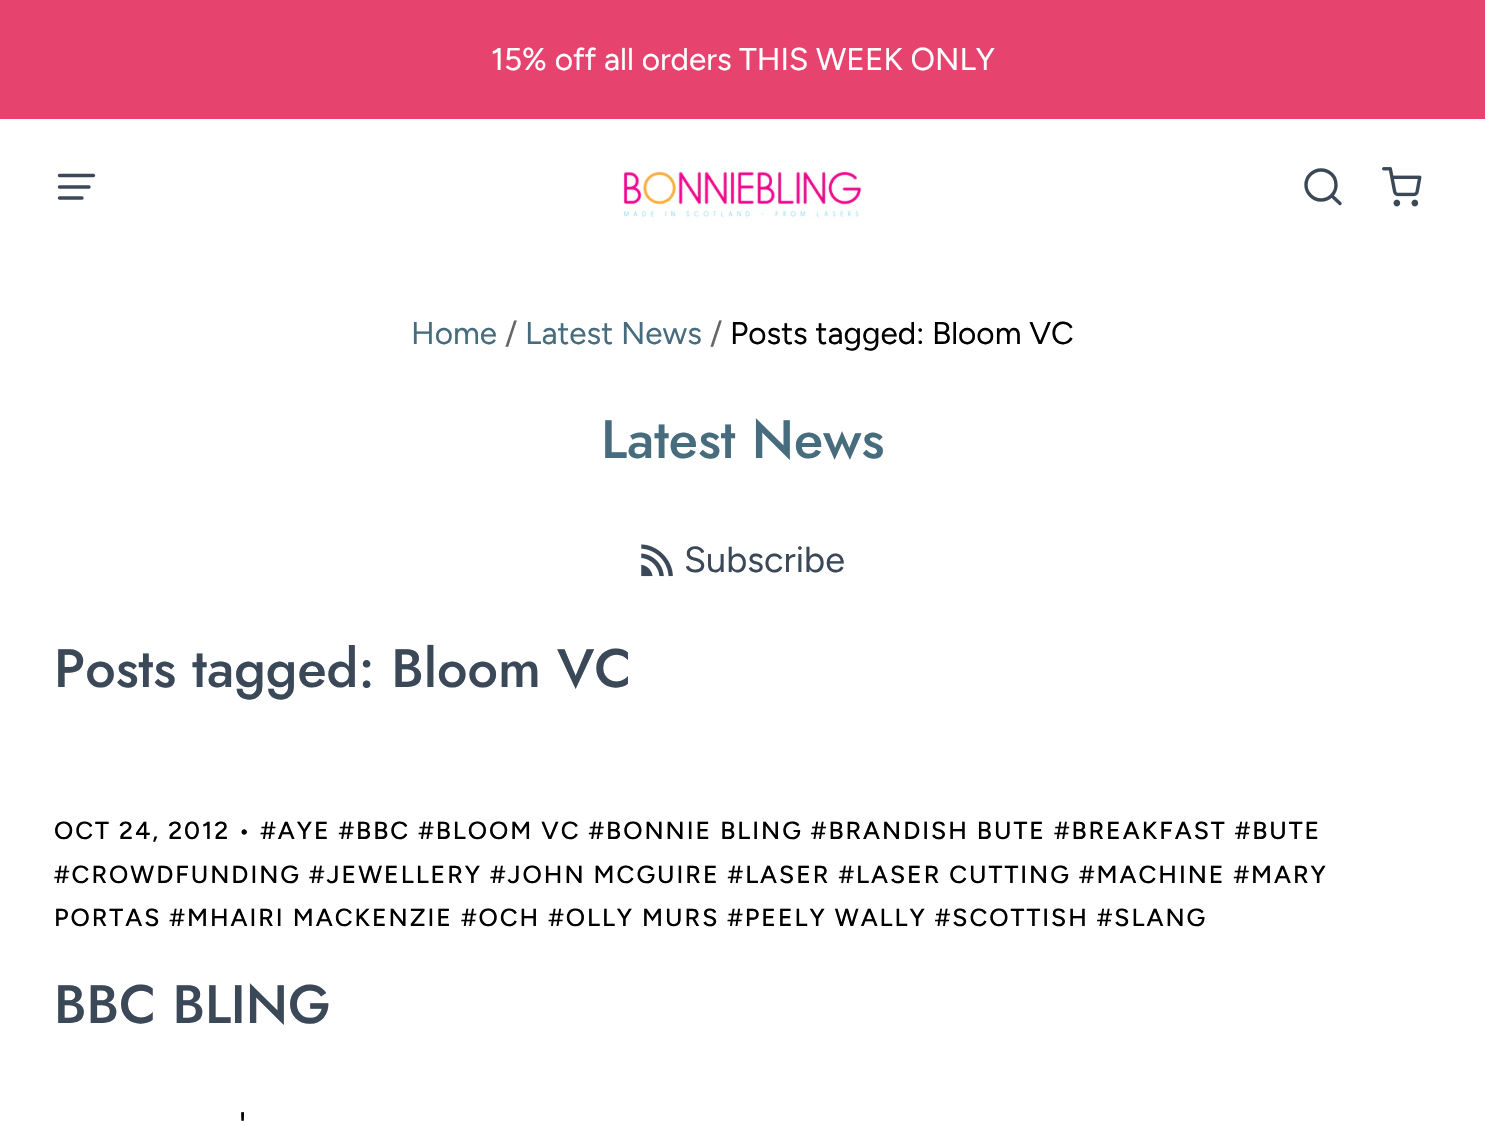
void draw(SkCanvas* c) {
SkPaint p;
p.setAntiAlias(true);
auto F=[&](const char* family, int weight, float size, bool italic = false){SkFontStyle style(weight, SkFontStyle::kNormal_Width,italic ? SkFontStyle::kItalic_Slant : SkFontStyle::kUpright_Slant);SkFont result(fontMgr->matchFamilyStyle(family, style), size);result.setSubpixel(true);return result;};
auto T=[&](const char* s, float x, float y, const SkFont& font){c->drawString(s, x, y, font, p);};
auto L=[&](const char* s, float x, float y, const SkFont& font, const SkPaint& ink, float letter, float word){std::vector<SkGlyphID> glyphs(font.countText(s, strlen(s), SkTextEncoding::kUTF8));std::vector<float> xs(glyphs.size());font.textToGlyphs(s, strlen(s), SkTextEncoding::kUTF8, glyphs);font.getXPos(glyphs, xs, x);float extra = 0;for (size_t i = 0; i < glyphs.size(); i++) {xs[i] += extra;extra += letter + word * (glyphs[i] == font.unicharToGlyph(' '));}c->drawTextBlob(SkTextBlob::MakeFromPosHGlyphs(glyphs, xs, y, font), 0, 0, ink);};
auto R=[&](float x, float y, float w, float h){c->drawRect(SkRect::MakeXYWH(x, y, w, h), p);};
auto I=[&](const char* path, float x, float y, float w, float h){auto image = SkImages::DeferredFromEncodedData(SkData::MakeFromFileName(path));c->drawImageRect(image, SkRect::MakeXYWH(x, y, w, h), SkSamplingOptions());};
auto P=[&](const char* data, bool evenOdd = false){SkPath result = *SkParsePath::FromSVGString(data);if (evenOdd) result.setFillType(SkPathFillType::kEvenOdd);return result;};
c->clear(0xffffffff);
p.setColor(0xffe6436f);
R(0,0,1485,119);
auto f1 = F("Figtree",400,31.5);
p.setColor(0xffffffff);
T("15% off all orders THIS WEEK ONLY",491,70,f1);
p.setStroke(true);
p.setStrokeWidth(3.4);
p.setStrokeCap(SkPaint::kRound_Cap);
p.setStrokeJoin(SkPaint::kRound_Join);
p.setColor(0xff3b4858);
c->drawPath(P("M59.5 175.5h34m-34 11.5h29.5m-29.5 11h22.5"),p);
I("1.png",621,167,243,55);
c->drawPath(P("M1321 170c-8 0-15 6.5-15 15c0 8 7 15 15 15c8.5 0 15-7 15-15c0-8.5-6.5-15-15-15zm19 33.5l-8.5-8z"),p);
I("2.png",1382,167,40,40);
p.setStroke(false);
p.setColor(0xff466c7e);
T("Home",411,344,f1);
p.setColor(0xff666666);
T("/",505,344,f1);
p.setColor(0xff466c7e);
T("Latest News",525,344,f1);
p.setColor(0xff666666);
T("/",710,344,f1);
p.setColor(0xff000000);
T("Posts tagged: Bloom VC",730,344,f1);
auto f2 = F("Jost",500,54);
p.setColor(0xff466c7e);
T("Latest News",601,458,f2);
I("3.png",641,544,32,33);
auto f3 = F("Figtree",400,36);
p.setColor(0xff3b4858);
T("Subscribe",684,572,f3);
T("Posts tagged: Bloom VC",54,687,f2);
auto f4 = F("Figtree",500,24.75);
p.setColor(0xff000000);
L("OCT 24, 2012 • #AYE #BBC #BLOOM VC #BONNIE BLING #BRANDISH BUTE #BREAKFAST #BUTE",54,839,f4,p,1.98,0);
L("#CROWDFUNDING #JEWELLERY #JOHN MCGUIRE #LASER #LASER CUTTING #MACHINE #MARY",54,883,f4,p,1.98,0);
L("PORTAS #MHAIRI MACKENZIE #OCH #OLLY MURS #PEELY WALLY #SCOTTISH #SLANG",54,926,f4,p,1.98,0);
p.setColor(0xff3b4858);
T("BBC BLING",54,1023,f2);
p.setColor(0xff000000);
T("'",239,1138,f3);
}
